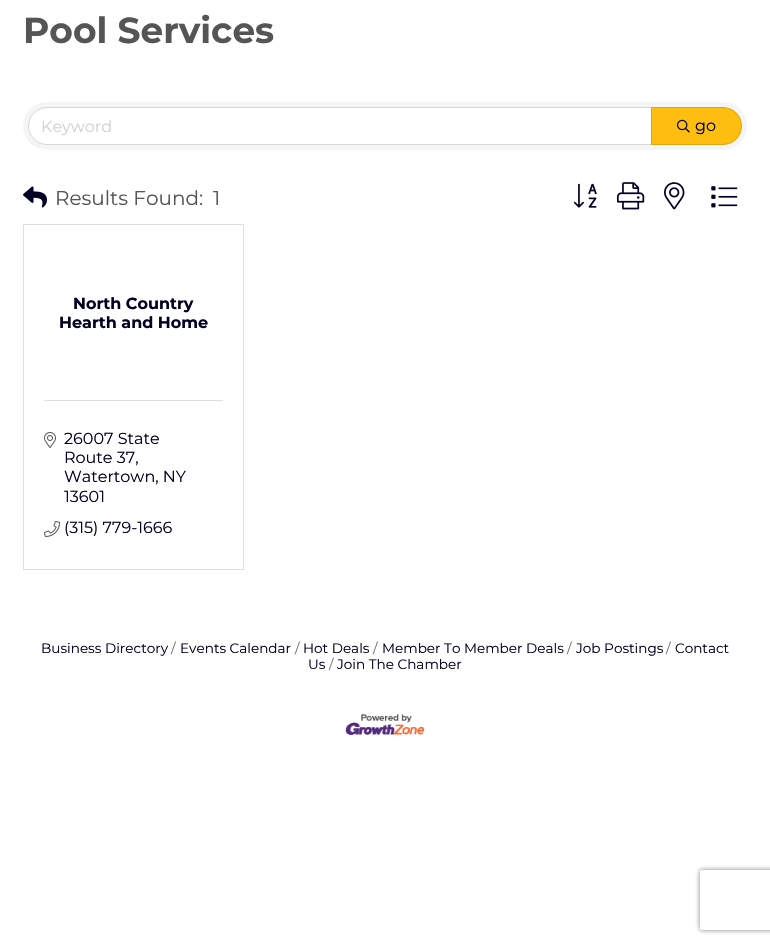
void draw(SkCanvas* c) {
SkPaint p;
p.setAntiAlias(true);
auto F=[&](const char* family, int weight, float size, bool italic = false){SkFontStyle style(weight, SkFontStyle::kNormal_Width,italic ? SkFontStyle::kItalic_Slant : SkFontStyle::kUpright_Slant);SkFont result(fontMgr->matchFamilyStyle(family, style), size);result.setSubpixel(true);return result;};
auto T=[&](const char* s, float x, float y, const SkFont& font){c->drawString(s, x, y, font, p);};
auto R=[&](float x, float y, float w, float h){c->drawRect(SkRect::MakeXYWH(x, y, w, h), p);};
auto Q=[&](float x, float y, float w, float h, float radius){c->drawRoundRect(SkRect::MakeXYWH(x, y, w, h), radius, radius, p);};
auto I=[&](const char* path, float x, float y, float w, float h){auto image = SkImages::DeferredFromEncodedData(SkData::MakeFromFileName(path));c->drawImageRect(image, SkRect::MakeXYWH(x, y, w, h), SkSamplingOptions());};
auto P=[&](const char* data, bool evenOdd = false){SkPath result = *SkParsePath::FromSVGString(data);if (evenOdd) result.setFillType(SkPathFillType::kEvenOdd);return result;};
c->clear(0xffffffff);
auto f1 = F("Montserrat",700,36);
p.setColor(0xff555555);
T("Pool Services",23,43,f1);
p.setColor(0xfff5f5f5);
Q(23,102,724,48,24);
p.setColor(0xffffffff);
c->drawPath(P("M47 108h604v36h-604c-10 0-18-8-18-18c0-10 8-18 18-18z"),p);
p.setStroke(true);
p.setStrokeWidth(1);
p.setColor(0x1f000000);
c->drawPath(P("M47 107.5h604.5v37h-604.5c-10 0-18.5-8.5-18.5-18.5c0-10 8.5-18.5 18.5-18.5z"),p);
auto f2 = F("Montserrat",400,16);
p.setStroke(false);
p.setColor(0xffd2d2d2);
T("Keyword",41,132,f2);
p.setColor(0xfffebe10);
c->drawPath(P("M651 107h72c10.5 0 19 8.5 19 19c0 10.5-8.5 19-19 19h-72z"),p);
p.setStroke(true);
p.setColor(0x1f000000);
c->drawPath(P("M651.5 107.5h71.5c10 0 18.5 8.5 18.5 18.5c0 10-8.5 18.5-18.5 18.5h-71.5z"),p);
I("1.png",677,119,13,14);
p.setStroke(false);
p.setColor(0xff000022);
T("go",695,131,f2);
I("2.png",23,186,24,22);
auto f3 = F("Montserrat",400,20);
p.setColor(0xff555555);
T("Results Found:",55,205,f3);
T("1",213,205,f3);
I("3.png",573,183,24,25);
I("4.png",617,182,28,28);
I("5.png",664,182,21,28);
I("6.png",711,186,27,22);
p.setStroke(true);
p.setColor(0xffdfdfdf);
c->drawRect(SkRect::MakeXYWH(23.5,224.5,220,345),p);
auto f4 = F("Montserrat",700,16);
p.setStroke(false);
p.setColor(0xff000022);
T("North Country",73,309,f4);
T("Hearth and Home",59,328,f4);
p.setColor(0xffdfdfdf);
R(44,400,179,1);
I("7.png",44,432,12,16);
p.setColor(0xff000022);
T("26007 State",64,444,f2);
T("Route 37,",64,463,f2);
T("Watertown, NY",64,482,f2);
T("13601",64,502,f2);
I("8.png",44,521,16,16);
T("(315) 779-1666",64,533,f2);
auto f5 = F("Montserrat",400,13.6);
p.setColor(0xff6c757d);
T("/",171,653,f5);
p.setColor(0xff000022);
T("Events Calendar",180,653,f5);
p.setColor(0xff6c757d);
T("/",295,653,f5);
p.setColor(0xff000022);
T("Hot Deals",303,653,f5);
p.setColor(0xff6c757d);
T("/",666,653,f5);
p.setColor(0xff000022);
T("Contact",675,653,f5);
T("Us",308,669,f5);
T("Business Directory",41,653,f5);
p.setColor(0xff6c757d);
T("/",373,653,f5);
p.setColor(0xff000022);
T("Member To Member Deals",382,653,f5);
p.setColor(0xff6c757d);
T("/",567,653,f5);
p.setColor(0xff000022);
T("Job Postings",576,653,f5);
p.setColor(0xff6c757d);
T("/",329,669,f5);
p.setColor(0xff000022);
T("Join The Chamber",337,669,f5);
I("9.png",345,714,80,21);
c->save();
c->clipPath(P("M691 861h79v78h-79zm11 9h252c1 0 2 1 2 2v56c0 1-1 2-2 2h-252c-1 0-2-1-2-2v-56c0-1 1-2 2-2z",true),true);
p.setColor(0xff808080);
p.setMaskFilter(SkMaskFilter::MakeBlur(kNormal_SkBlurStyle, 2.5));
c->drawRoundRect(SkRect::MakeXYWH(700,870,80,60),2,2,p);
p.setMaskFilter(nullptr);
c->restore();
}
